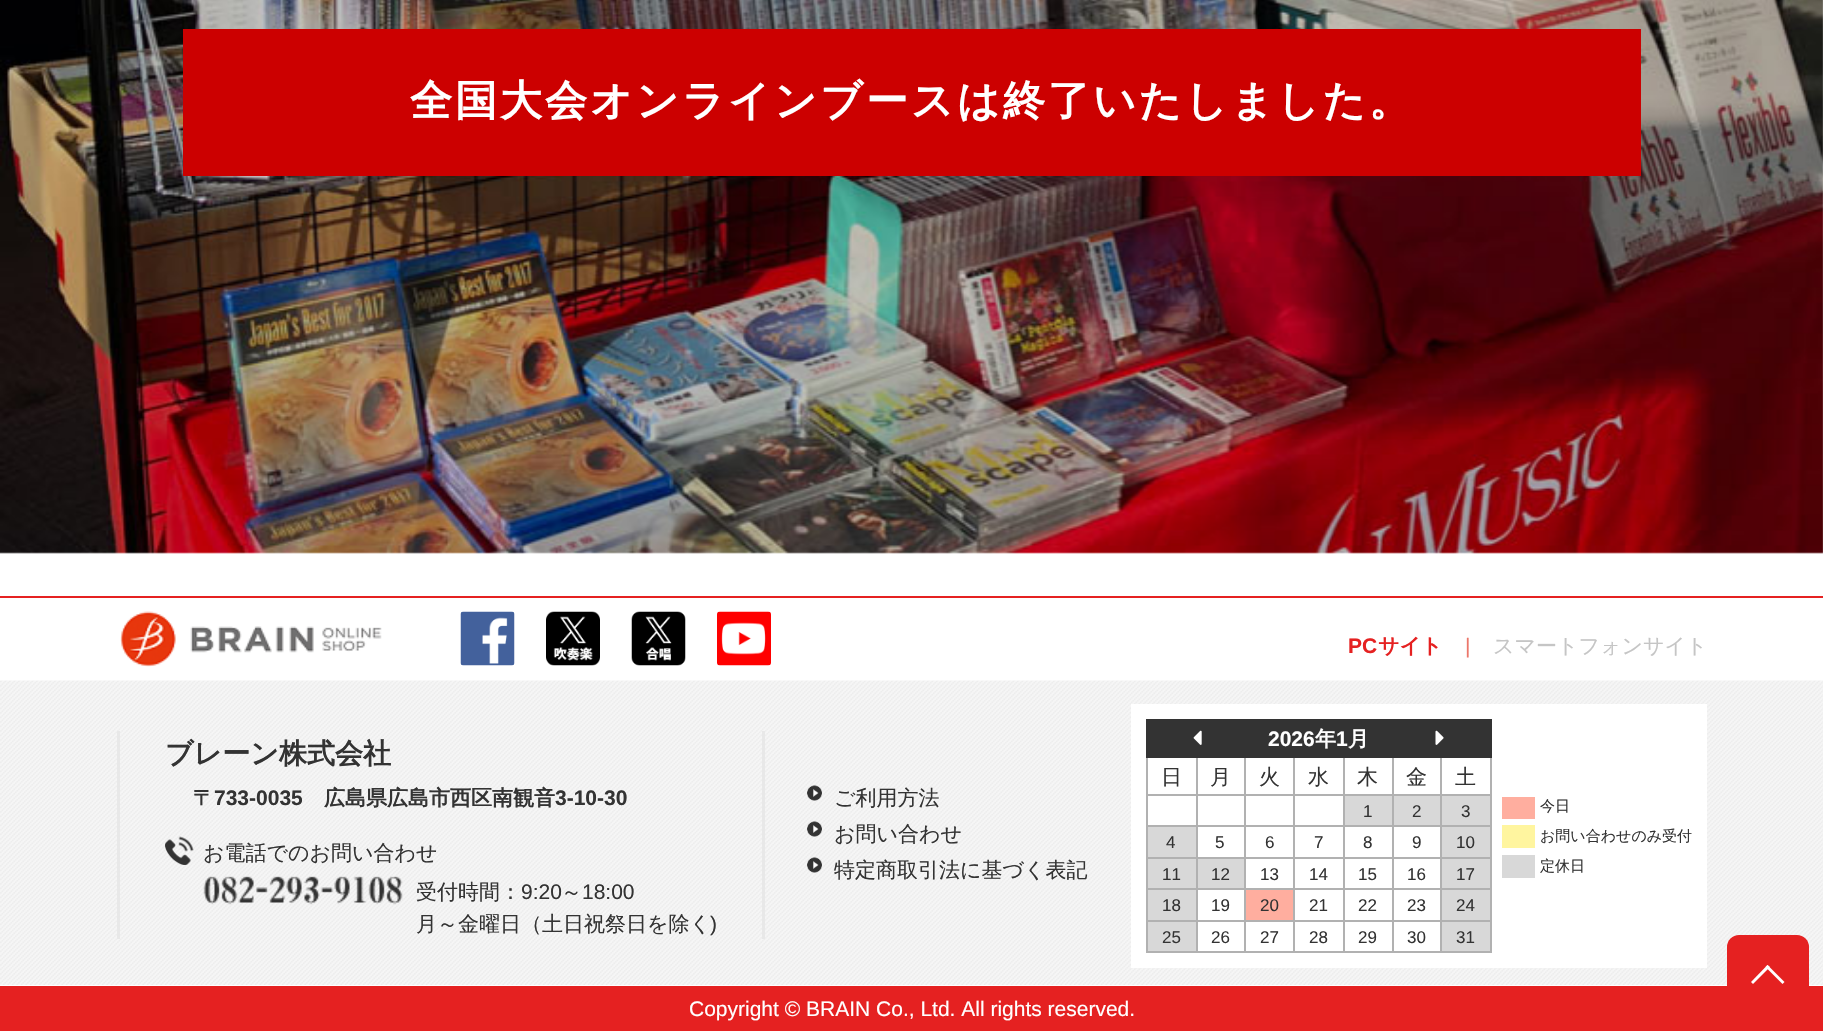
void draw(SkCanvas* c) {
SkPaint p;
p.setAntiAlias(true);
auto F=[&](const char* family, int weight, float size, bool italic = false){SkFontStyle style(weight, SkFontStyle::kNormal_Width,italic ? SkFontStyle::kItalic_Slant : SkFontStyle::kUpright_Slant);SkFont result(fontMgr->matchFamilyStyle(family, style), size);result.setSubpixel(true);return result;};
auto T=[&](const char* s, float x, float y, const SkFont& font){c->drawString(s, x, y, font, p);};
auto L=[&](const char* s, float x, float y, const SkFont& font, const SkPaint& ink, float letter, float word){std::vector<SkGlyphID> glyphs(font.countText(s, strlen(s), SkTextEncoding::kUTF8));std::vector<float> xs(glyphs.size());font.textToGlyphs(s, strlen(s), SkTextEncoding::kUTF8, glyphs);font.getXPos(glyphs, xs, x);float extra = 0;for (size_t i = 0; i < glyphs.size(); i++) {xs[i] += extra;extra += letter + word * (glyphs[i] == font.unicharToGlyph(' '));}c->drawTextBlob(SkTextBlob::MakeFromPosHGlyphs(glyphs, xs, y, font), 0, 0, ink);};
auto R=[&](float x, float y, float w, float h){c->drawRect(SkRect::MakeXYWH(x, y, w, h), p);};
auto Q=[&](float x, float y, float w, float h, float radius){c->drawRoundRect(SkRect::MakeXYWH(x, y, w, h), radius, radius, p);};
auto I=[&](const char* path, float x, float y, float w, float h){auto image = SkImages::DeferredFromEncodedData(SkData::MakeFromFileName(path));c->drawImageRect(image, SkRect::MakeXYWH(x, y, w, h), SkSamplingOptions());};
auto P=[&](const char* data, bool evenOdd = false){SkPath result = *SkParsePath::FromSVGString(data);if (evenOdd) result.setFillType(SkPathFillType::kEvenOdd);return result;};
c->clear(0xffffffff);
I("1.png",0,0,1823,554);
p.setColor(0xffcc0000);
R(183,29,1458,147);
auto f1 = F("WenQuanYi Zen Hei",700,42);
p.setColor(0xffffffff);
L("全国大会オンラインブースは終了いたしました。",410,115,f1,p,3,0);
p.setColor(0xffe52121);
R(0,596,1823,2);
I("2.png",120,611,262,56);
I("3.png",460,611,55,55);
I("4.png",546,611,54,55);
I("5.png",631,611,55,55);
I("6.png",717,611,54,55);
auto f2 = F("Liberation Sans",700,21);
T("PC",1348,653,f2);
auto f3 = F("WenQuanYi Zen Hei",700,21);
T("サイト",1378,653,f3);
auto f4 = F("Liberation Sans",400,21);
p.setColor(0xffec776b);
T("|",1465,653,f4);
auto f5 = F("WenQuanYi Zen Hei",500,21);
p.setColor(0xffc5c5c5);
T("スマートフォンサイト",1493,653,f5);
I("7.png",0,680,1823,305);
p.setColor(0xffe8e8e8);
R(117,731,3,208);
auto f6 = F("WenQuanYi Zen Hei",700,28);
p.setColor(0xff333333);
T("ブレーン株式会社",165,763,f6);
T("〒",193,805,f3);
T("733-0035",214,805,f2);
T("広島県広島市西区南観音",324,805,f3);
T("3-10-30",555,805,f2);
I("8.png",165,836,29,29);
T("お電話でのお問い合わせ",203,860,f5);
I("9.png",203,876,200,29);
T("受付時間：",416,899,f5);
T("9:20",521,899,f4);
T("～",561,899,f5);
T("18:00",582,899,f4);
T("月～金曜日（土日祝祭日を除く",416,931,f5);
T(")",710,931,f4);
p.setColor(0xffe8e8e8);
R(762,731,3,208);
I("10.png",807,785,15,16);
p.setColor(0xff333333);
T("ご利用方法",834,805,f5);
I("10.png",807,821,15,16);
T("お問い合わせ",834,841,f5);
I("10.png",807,857,15,16);
T("特定商取引法に基づく表記",834,877,f5);
p.setColor(0xffffffff);
R(1131,704,576,264);
p.setColor(0xff333333);
R(1146,719,345,1);
p.setColor(0xffb1b1b1);
R(1440,794,51,2);
R(1440,825,51,2);
R(1440,857,51,2);
R(1440,888,51,2);
R(1440,920,51,2);
R(1490,920,2,33);
R(1490,888,2,33);
R(1490,857,2,33);
R(1490,825,2,33);
R(1490,756,2,71);
p.setColor(0xff333333);
R(1490,719,2,39);
p.setColor(0xffb1b1b1);
R(1440,951,51,2);
R(1440,920,2,33);
R(1392,920,50,2);
R(1440,888,2,33);
R(1392,888,50,2);
R(1440,857,2,33);
R(1392,857,50,2);
R(1440,825,2,33);
R(1392,825,50,2);
R(1440,794,2,33);
R(1392,794,50,2);
R(1392,951,50,2);
R(1392,920,2,33);
R(1343,920,51,2);
R(1392,888,2,33);
R(1343,888,51,2);
R(1392,857,2,33);
R(1343,857,51,2);
R(1392,825,2,33);
R(1343,825,51,2);
R(1392,794,2,33);
R(1343,794,51,2);
R(1343,951,51,2);
R(1343,920,2,33);
R(1293,920,51,2);
R(1343,888,2,33);
R(1293,888,51,2);
R(1343,857,2,33);
R(1293,857,51,2);
R(1343,825,2,33);
R(1293,825,51,2);
R(1343,794,2,33);
R(1293,794,51,2);
R(1293,951,51,2);
R(1293,920,2,33);
R(1244,920,51,2);
R(1293,888,2,33);
R(1244,888,51,2);
R(1293,857,2,33);
R(1244,857,51,2);
R(1293,825,2,33);
R(1244,825,51,2);
R(1293,794,2,33);
R(1244,794,51,2);
R(1244,951,51,2);
R(1244,920,2,33);
R(1196,920,49,2);
R(1244,888,2,33);
R(1196,888,49,2);
R(1244,857,2,33);
R(1196,857,49,2);
R(1244,825,2,33);
R(1196,825,49,2);
R(1244,794,2,33);
R(1196,794,49,2);
R(1196,951,49,2);
R(1196,920,2,33);
R(1146,920,51,2);
R(1196,888,2,33);
R(1146,888,51,2);
R(1196,857,2,33);
R(1146,857,51,2);
R(1196,825,2,33);
R(1146,825,51,2);
R(1196,794,2,33);
R(1146,794,51,2);
R(1146,951,51,2);
R(1146,920,2,33);
R(1146,888,2,33);
R(1146,857,2,33);
R(1146,825,2,33);
R(1146,756,2,71);
p.setColor(0xff333333);
R(1146,719,2,39);
p.setColor(0xffb1b1b1);
R(1196,756,2,39);
R(1244,756,2,39);
R(1293,756,2,39);
R(1343,756,2,39);
R(1392,756,2,39);
R(1440,756,2,39);
p.setColor(0xff333333);
R(1148,720,342,38);
p.setColor(0xffffffff);
T("2026",1268,746,f2);
T("年",1315,746,f3);
T("1",1336,746,f2);
T("月",1348,746,f3);
I("11.png",1193,730,9,15);
I("12.png",1435,730,9,15);
p.setColor(0xff333333);
T("日",1161,784,f5);
T("月",1210,784,f5);
T("火",1259,784,f5);
T("水",1308,784,f5);
T("木",1357,784,f5);
T("金",1406,784,f5);
T("土",1455,784,f5);
p.setColor(0xffd8d8d8);
R(1345,796,47,29);
auto f7 = F("Liberation Sans",400,17);
p.setColor(0xff333333);
T("1",1363,817,f7);
p.setColor(0xffd8d8d8);
R(1394,796,46,29);
p.setColor(0xff333333);
T("2",1412,817,f7);
p.setColor(0xffd8d8d8);
R(1442,796,48,29);
p.setColor(0xff333333);
T("3",1461,817,f7);
p.setColor(0xffd8d8d8);
R(1148,827,48,30);
p.setColor(0xff333333);
T("4",1166,848,f7);
T("5",1215,848,f7);
T("6",1265,848,f7);
T("7",1314,848,f7);
T("8",1363,848,f7);
T("9",1412,848,f7);
p.setColor(0xffd8d8d8);
R(1442,827,48,30);
p.setColor(0xff333333);
T("10",1456,848,f7);
p.setColor(0xffd8d8d8);
R(1148,859,48,29);
p.setColor(0xff333333);
T("11",1162,880,f7);
p.setColor(0xffd8d8d8);
R(1198,859,46,29);
p.setColor(0xff333333);
T("12",1211,880,f7);
T("13",1260,880,f7);
T("14",1309,880,f7);
T("15",1358,880,f7);
T("16",1407,880,f7);
p.setColor(0xffd8d8d8);
R(1442,859,48,29);
p.setColor(0xff333333);
T("17",1456,880,f7);
p.setColor(0xffd8d8d8);
R(1148,890,48,30);
p.setColor(0xff333333);
T("18",1162,911,f7);
T("19",1211,911,f7);
p.setColor(0xffffae9f);
R(1246,890,47,30);
p.setColor(0xff333333);
T("20",1260,911,f7);
T("21",1309,911,f7);
T("22",1358,911,f7);
T("23",1407,911,f7);
p.setColor(0xffd8d8d8);
R(1442,890,48,30);
p.setColor(0xff333333);
T("24",1456,911,f7);
p.setColor(0xffd8d8d8);
R(1148,922,48,29);
p.setColor(0xff333333);
T("25",1162,943,f7);
T("26",1211,943,f7);
T("27",1260,943,f7);
T("28",1309,943,f7);
T("29",1358,943,f7);
T("30",1407,943,f7);
p.setColor(0xffd8d8d8);
R(1442,922,48,29);
p.setColor(0xff333333);
T("31",1456,943,f7);
p.setColor(0xffffae9f);
R(1502,797,33,22);
auto f8 = F("WenQuanYi Zen Hei",500,15);
p.setColor(0xff333333);
T("今日",1540,811,f8);
p.setColor(0xfffff59f);
R(1502,825,33,23);
p.setColor(0xff333333);
T("お問い合わせのみ受付",1540,841,f8);
p.setColor(0xffd8d8d8);
R(1502,855,33,23);
p.setColor(0xff333333);
T("定休日",1540,871,f8);
p.setColor(0xffe52121);
R(0,986,1823,45);
p.setColor(0xffffffff);
T("Copyright © BRAIN Co., Ltd. All rights reserved.",689,1016,f4);
p.setColor(0xffe52121);
Q(1727,935,82,82,12);
p.setColor(0xffffffff);
c->drawPath(P("M1751 982l16.5-17l2.5 2l-17 17z"),p);
c->drawPath(P("M1765.5 967l2-2l17 17l-2 2z"),p);
}
